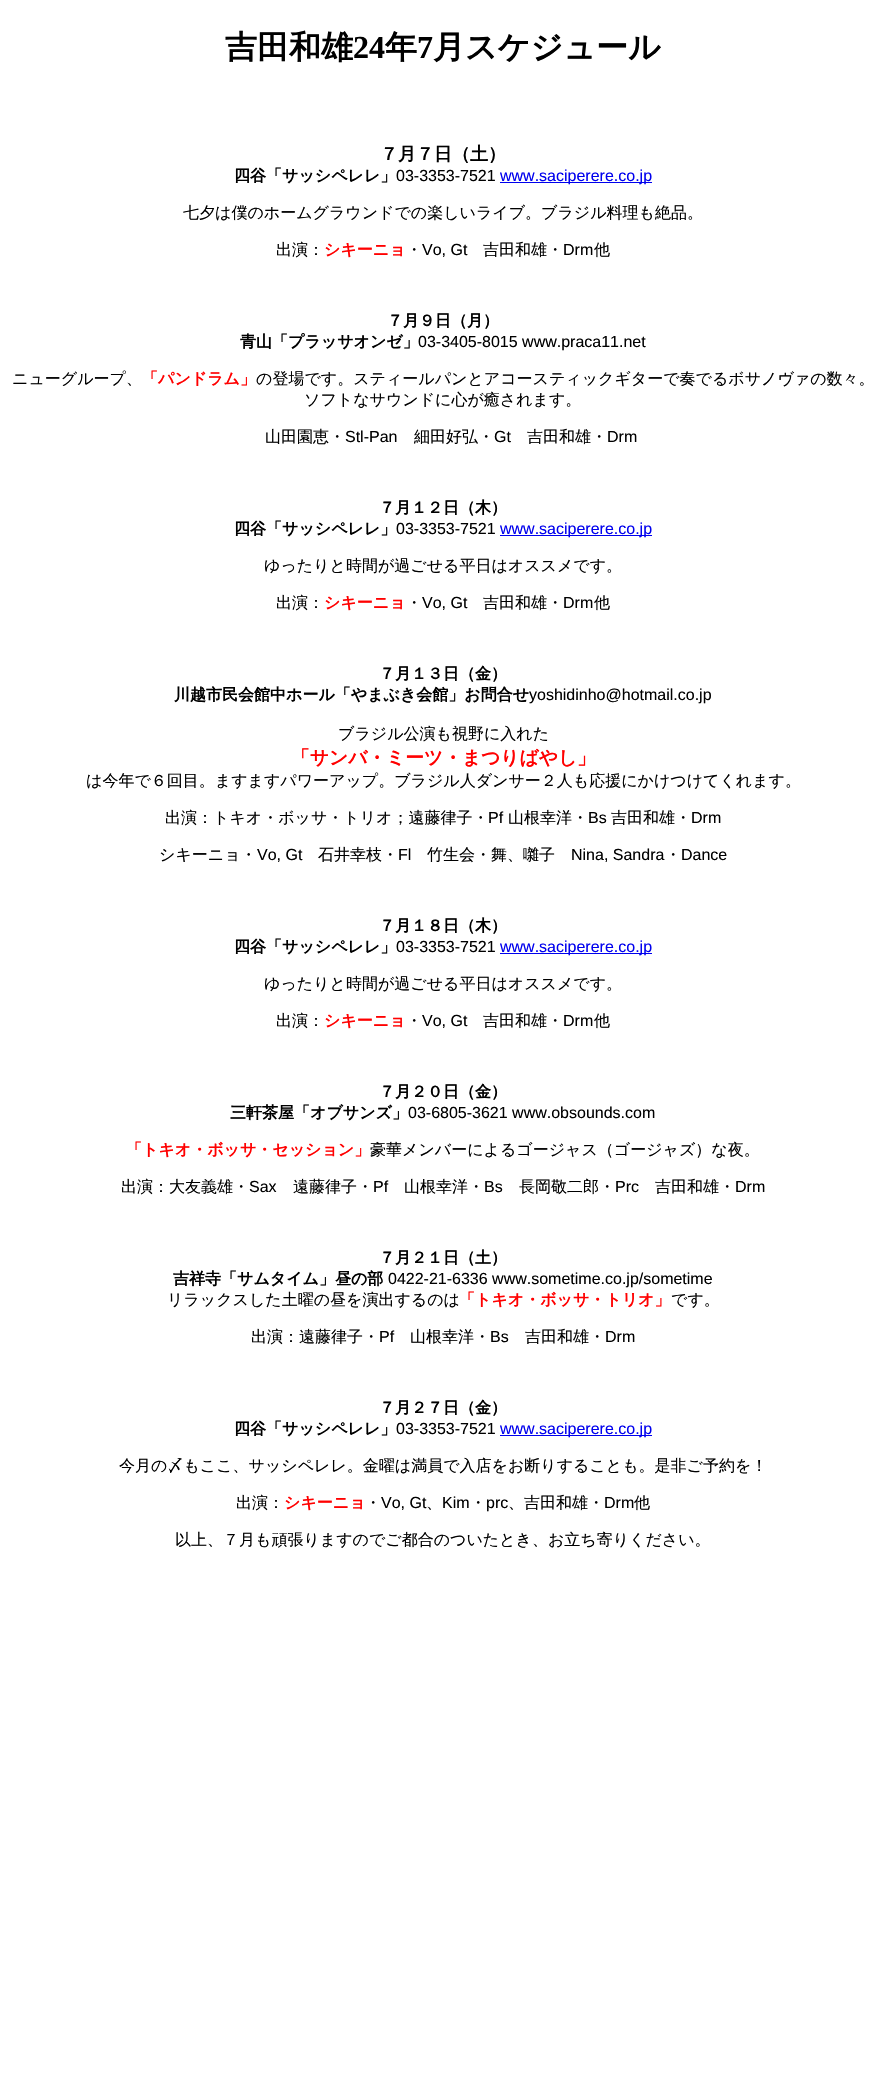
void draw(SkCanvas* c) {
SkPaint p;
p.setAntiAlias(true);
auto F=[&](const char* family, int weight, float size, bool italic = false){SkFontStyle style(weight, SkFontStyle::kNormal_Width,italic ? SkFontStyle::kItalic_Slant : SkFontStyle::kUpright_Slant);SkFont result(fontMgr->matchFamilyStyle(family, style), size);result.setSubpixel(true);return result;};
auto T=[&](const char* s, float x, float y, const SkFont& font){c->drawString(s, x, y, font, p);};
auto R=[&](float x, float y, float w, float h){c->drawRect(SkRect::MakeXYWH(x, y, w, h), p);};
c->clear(0xffffffff);
auto f1 = F("WenQuanYi Zen Hei",700,32);
p.setColor(0xff000000);
T("吉田和雄",225,58,f1);
auto f2 = F("Liberation Serif",700,32);
T("24",353,58,f2);
T("年",385,58,f1);
T("7",417,58,f2);
T("月スケジュール",433,58,f1);
auto f3 = F("WenQuanYi Zen Hei",700,18);
T("７月７日（土）",380,160,f3);
auto f4 = F("WenQuanYi Zen Hei",700,16);
T("四谷「サッシペレレ」",234,181,f4);
auto f5 = F("Liberation Sans",400,16);
T("03-3353-7521",396,181,f5);
p.setColor(0xff0000ee);
R(500,182,152,1);
T("www.saciperere.co.jp",500,181,f5);
auto f6 = F("WenQuanYi Zen Hei",500,16);
p.setColor(0xff000000);
T("七夕は僕のホームグラウンドでの楽しいライブ。ブラジル料理も絶品。",183,218,f6);
T("出演：",276,255,f6);
p.setColor(0xffff0000);
T("シキーニョ",324,255,f4);
p.setColor(0xff000000);
T("・",406,255,f6);
T("Vo, Gt",422,255,f5);
T("吉田和雄・",483,255,f6);
T("Drm",563,255,f5);
T("他",594,255,f6);
T("７月９日（月）",387,326,f4);
T("青山「プラッサオンゼ」",240,347,f4);
T("03-3405-8015 www.praca11.net",418,347,f5);
T("ニューグループ、",12,384,f6);
p.setColor(0xffff0000);
T("「パンドラム」",142,384,f4);
p.setColor(0xff000000);
T("の登場です。スティールパンとアコースティックギターで奏でるボサノヴァの数々。",256,384,f6);
T("ソフトなサウンドに心が癒されます。",304,405,f6);
T("山田園恵・",265,442,f6);
T("Stl-Pan",345,442,f5);
T("細田好弘・",414,442,f6);
T("Gt",494,442,f5);
T("吉田和雄・",527,442,f6);
T("Drm",607,442,f5);
T("７月１２日（木）",379,513,f4);
T("四谷「サッシペレレ」",234,534,f4);
T("03-3353-7521",396,534,f5);
p.setColor(0xff0000ee);
R(500,535,152,1);
T("www.saciperere.co.jp",500,534,f5);
p.setColor(0xff000000);
T("ゆったりと時間が過ごせる平日はオススメです。",264,571,f6);
T("出演：",276,608,f6);
p.setColor(0xffff0000);
T("シキーニョ",324,608,f4);
p.setColor(0xff000000);
T("・",406,608,f6);
T("Vo, Gt",422,608,f5);
T("吉田和雄・",483,608,f6);
T("Drm",563,608,f5);
T("他",594,608,f6);
T("７月１３日（金）",379,679,f4);
T("川越市民会館中ホール「やまぶき会館」お問合せ",174,700,f4);
T("yoshidinho@hotmail.co.jp",529,700,f5);
T("ブラジル公演も視野に入れた",338,739,f6);
auto f7 = F("WenQuanYi Zen Hei",700,18.75);
p.setColor(0xffff0000);
T("「サンバ・ミーツ・まつりばやし」",291,764,f7);
p.setColor(0xff000000);
T("は今年で６回目。ますますパワーアップ。ブラジル人ダンサー２人も応援にかけつけてくれます。",86,786,f6);
T("出演：トキオ・ボッサ・トリオ；遠藤律子・",165,823,f6);
T("Pf",488,823,f5);
T("山根幸洋・",508,823,f6);
T("Bs",588,823,f5);
T("吉田和雄・",611,823,f6);
T("Drm",691,823,f5);
T("シキーニョ・",159,860,f6);
T("Vo, Gt",257,860,f5);
T("石井幸枝・",318,860,f6);
T("Fl",398,860,f5);
T("竹生会・舞、囃子",427,860,f6);
T("Nina, Sandra",571,860,f5);
T("・",665,860,f6);
T("Dance",681,860,f5);
T("７月１８日（木）",379,931,f4);
T("四谷「サッシペレレ」",234,952,f4);
T("03-3353-7521",396,952,f5);
p.setColor(0xff0000ee);
R(500,953,152,1);
T("www.saciperere.co.jp",500,952,f5);
p.setColor(0xff000000);
T("ゆったりと時間が過ごせる平日はオススメです。",264,989,f6);
T("出演：",276,1026,f6);
p.setColor(0xffff0000);
T("シキーニョ",324,1026,f4);
p.setColor(0xff000000);
T("・",406,1026,f6);
T("Vo, Gt",422,1026,f5);
T("吉田和雄・",483,1026,f6);
T("Drm",563,1026,f5);
T("他",594,1026,f6);
T("７月２０日（金）",379,1097,f4);
T("三軒茶屋「オブサンズ」",230,1118,f4);
T("03-6805-3621 www.obsounds.com",408,1118,f5);
p.setColor(0xffff0000);
T("「トキオ・ボッサ・セッション」",126,1155,f4);
p.setColor(0xff000000);
T("豪華メンバーによるゴージャス（ゴージャズ）な夜。",370,1155,f6);
T("出演：大友義雄・",121,1192,f6);
T("Sax",249,1192,f5);
T("遠藤律子・",293,1192,f6);
T("Pf",373,1192,f5);
T("山根幸洋・",404,1192,f6);
T("Bs",484,1192,f5);
T("長岡敬二郎・",519,1192,f6);
T("Prc",615,1192,f5);
T("吉田和雄・",655,1192,f6);
T("Drm",735,1192,f5);
T("７月２１日（土）",379,1263,f4);
T("吉祥寺「サムタイム」昼の部",173,1284,f4);
T("0422-21-6336 www.sometime.co.jp/sometime",388,1284,f5);
T("リラックスした土曜の昼を演出するのは",167,1305,f6);
p.setColor(0xffff0000);
T("「トキオ・ボッサ・トリオ」",459,1305,f4);
p.setColor(0xff000000);
T("です。",671,1305,f6);
T("出演：遠藤律子・",251,1342,f6);
T("Pf",379,1342,f5);
T("山根幸洋・",410,1342,f6);
T("Bs",490,1342,f5);
T("吉田和雄・",525,1342,f6);
T("Drm",605,1342,f5);
T("７月２７日（金）",379,1413,f4);
T("四谷「サッシペレレ」",234,1434,f4);
T("03-3353-7521",396,1434,f5);
p.setColor(0xff0000ee);
R(500,1435,152,1);
T("www.saciperere.co.jp",500,1434,f5);
p.setColor(0xff000000);
T("今月の〆もここ、サッシペレレ。金曜は満員で入店をお断りすることも。是非ご予約を！",119,1471,f6);
T("出演：",236,1508,f6);
p.setColor(0xffff0000);
T("シキーニョ",284,1508,f4);
p.setColor(0xff000000);
T("・",365,1508,f6);
T("Vo, Gt",381,1508,f5);
T("Kim",442,1508,f5);
T("・",470,1508,f6);
T("prc",486,1508,f5);
T("、吉田和雄・",508,1508,f6);
T("Drm",604,1508,f5);
T("他",634,1508,f6);
T("、",426,1508,f6);
T("以上、７月も頑張りますのでご都合のついたとき、お立ち寄りください。",175,1545,f6);
}
